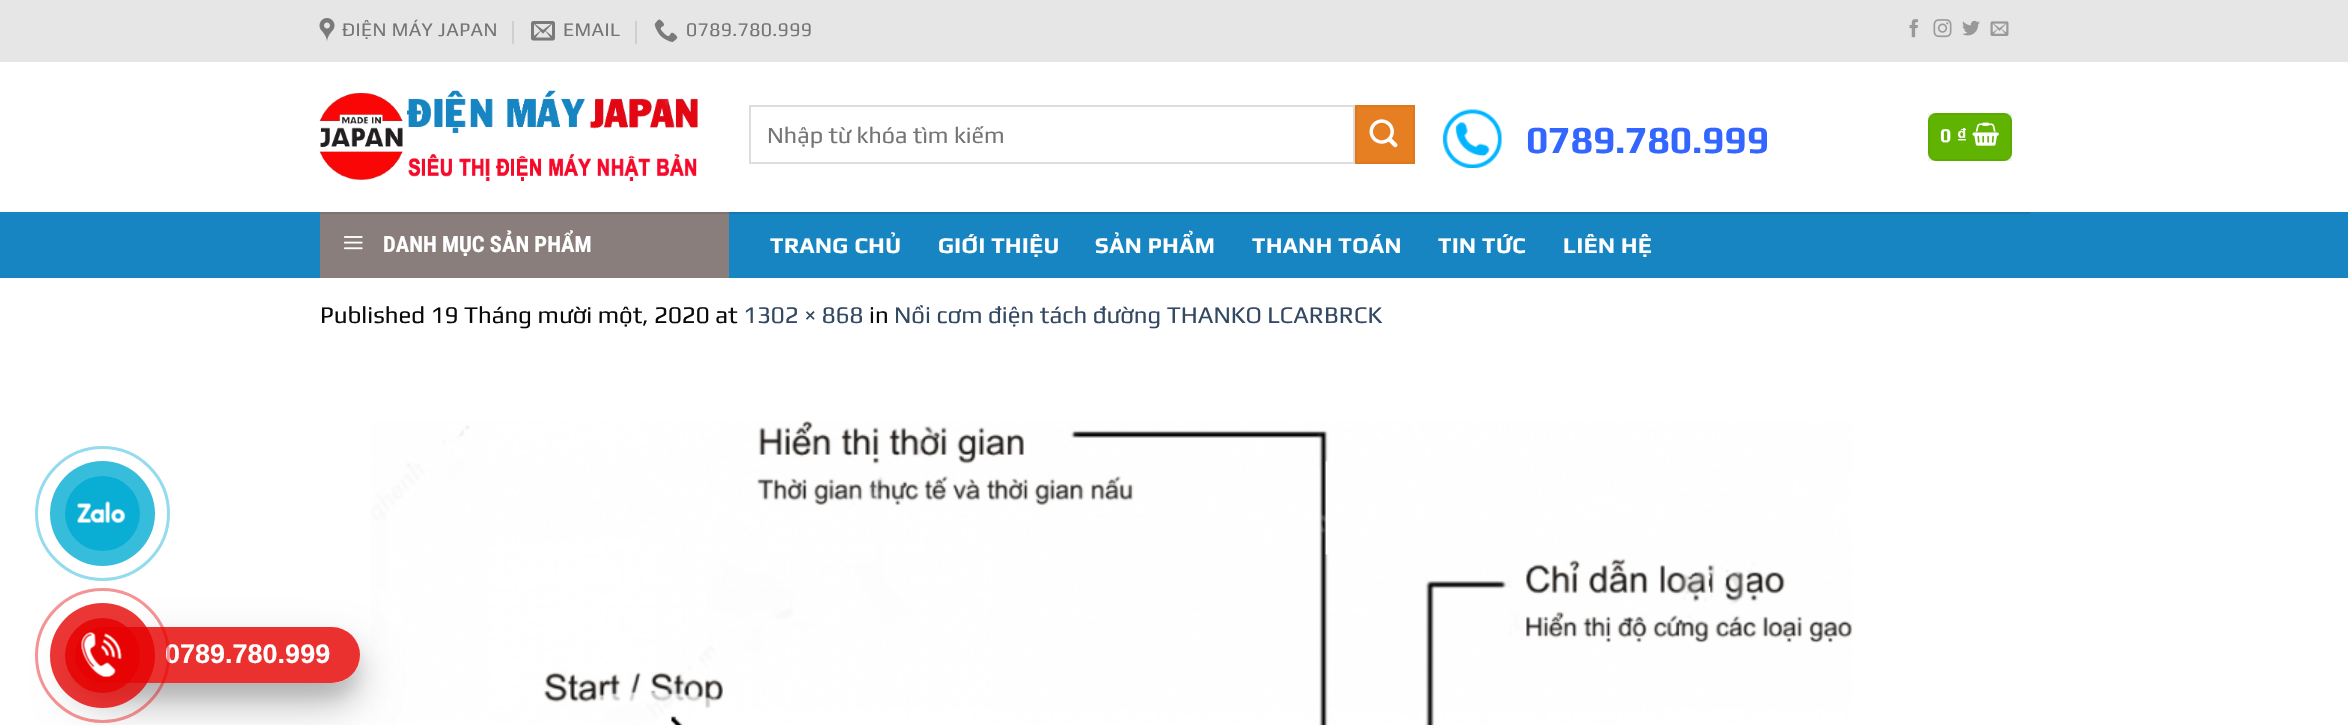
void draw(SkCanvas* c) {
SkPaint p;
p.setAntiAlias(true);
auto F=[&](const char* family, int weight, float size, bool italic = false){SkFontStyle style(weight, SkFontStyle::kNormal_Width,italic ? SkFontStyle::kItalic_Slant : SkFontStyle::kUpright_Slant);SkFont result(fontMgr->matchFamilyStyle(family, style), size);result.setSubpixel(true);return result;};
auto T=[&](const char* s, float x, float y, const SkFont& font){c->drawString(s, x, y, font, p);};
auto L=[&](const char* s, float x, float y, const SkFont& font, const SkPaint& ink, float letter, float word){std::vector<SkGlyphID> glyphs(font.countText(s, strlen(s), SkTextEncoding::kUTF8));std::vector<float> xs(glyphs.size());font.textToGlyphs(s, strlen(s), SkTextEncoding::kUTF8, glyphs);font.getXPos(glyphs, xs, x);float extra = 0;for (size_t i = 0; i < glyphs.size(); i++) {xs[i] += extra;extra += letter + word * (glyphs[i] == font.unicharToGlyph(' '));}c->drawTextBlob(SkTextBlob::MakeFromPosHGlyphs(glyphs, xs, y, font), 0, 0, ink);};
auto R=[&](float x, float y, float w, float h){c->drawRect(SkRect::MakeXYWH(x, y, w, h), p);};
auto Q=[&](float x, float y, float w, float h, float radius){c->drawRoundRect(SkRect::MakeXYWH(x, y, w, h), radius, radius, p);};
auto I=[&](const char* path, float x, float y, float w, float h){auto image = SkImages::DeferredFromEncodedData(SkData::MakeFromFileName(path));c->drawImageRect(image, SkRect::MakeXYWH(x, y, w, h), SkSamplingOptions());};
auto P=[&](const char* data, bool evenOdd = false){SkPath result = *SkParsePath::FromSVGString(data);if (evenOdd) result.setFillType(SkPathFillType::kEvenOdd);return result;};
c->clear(0xffffffff);
p.setColor(0xffe6e6e6);
R(0,0,2348,62);
I("1.png",319,18,16,24);
auto f1 = F("Play",400,19.25);
p.setColor(0xff757575);
L("ĐIỆN MÁY JAPAN",342,36,f1,p,.4,0);
p.setColor(0xffcfcfcf);
R(512,21,2,23);
I("2.png",531,21,24,20);
p.setColor(0xff757575);
L("EMAIL",563,36,f1,p,.4,0);
p.setColor(0xffcfcfcf);
R(635,21,2,23);
I("3.png",654,19,24,23);
p.setColor(0xff757575);
L("0789.780.999",686,36,f1,p,.4,0);
I("4.png",1909,19,9,19);
I("5.png",1933,19,19,19);
I("6.png",1962,20,18,16);
I("7.png",1990,21,19,15);
I("8.png",319,90,379,91);
p.setStroke(true);
p.setStrokeWidth(2);
p.setColor(0xffdddddd);
c->drawRect(SkRect::MakeXYWH(750,106,604,57),p);
auto f2 = F("Play",400,23.25);
p.setStroke(false);
p.setColor(0xff757575);
T("Nhập từ khóa tìm kiếm",767,143,f2);
p.setColor(0xffe67e22);
c->drawRect(SkRect::MakeXYWH(1356,106,58,57),p);
p.setStroke(true);
p.setColor(0xffdb7820);
c->drawRect(SkRect::MakeXYWH(1356,106,58,57),p);
I("9.png",1369,119,29,29);
I("10.png",1443,109,59,59);
auto f3 = F("Play",700,38.5);
p.setStroke(false);
p.setColor(0xff3366ff);
T("0789.780.999",1526,153,f3);
p.setColor(0xff60b301);
Q(1928,113,84,48,8);
p.setStroke(true);
p.setColor(0x0d000000);
c->drawRect(SkRect::MakeXYWH(1929,114,82,46),p);
auto f4 = F("Play",700,19.25);
p.setStroke(false);
p.setColor(0xffffffff);
L("0",1940,142,f4,p,1,0);
auto f5 = F("Liberation Sans",700,19.25);
L("₫",1957,142,f5,p,1,0);
I("11.png",1972,122,27,24);
p.setColor(0xff1685c1);
R(0,212,2348,66);
p.setColor(0xff1579af);
R(729,212,1301,2);
p.setColor(0xff8a7e7c);
R(320,214,409,64);
p.setColor(0xff7d7271);
R(320,212,409,2);
I("12.png",343,236,20,14);
auto f6 = F("Roboto Condensed",700,22.5);
p.setColor(0xffffffff);
T("DANH MỤC SẢN PHẨM",383,252,f6);
auto f7 = F("Play",700,22.5);
L("TRANG CHỦ",770,253,f7,p,.5,0);
L("GIỚI THIỆU",938,253,f7,p,.5,0);
L("SẢN PHẨM",1095,253,f7,p,.5,0);
L("THANH TOÁN",1252,253,f7,p,.5,0);
L("TIN TỨC",1438,253,f7,p,.5,0);
L("LIÊN HỆ",1563,253,f7,p,.5,0);
auto f8 = F("Play",400,24);
p.setColor(0xff0a0a0a);
T("Published 19 Tháng mười một, 2020 at",320,323,f8);
p.setColor(0xff334862);
T("1302 × 868",743,323,f8);
p.setColor(0xff0a0a0a);
T("in",869,323,f8);
p.setColor(0xff334862);
T("Nồi cơm điện tách đường THANKO LCARBRCK",894,323,f8);
I("13.png",371,420,1482,305);
p.setStroke(true);
p.setStrokeWidth(3);
p.setColor(0xff94dced);
c->drawCircle(102.5,513.5,66,p);
p.setStroke(false);
p.setColor(0xff36bddc);
c->drawCircle(102.5,513.5,52.5,p);
p.setColor(0xff0aaed5);
c->drawCircle(102.5,513.5,37.5,p);
I("14.png",77,501,49,22);
c->save();
c->clipPath(P("M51 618h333v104h-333zm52 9h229c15.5 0 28 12.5 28 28c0 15.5-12.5 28-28 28h-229c-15.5 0-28-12.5-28-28c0-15.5 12.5-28 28-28z",true),true);
p.setColor(0x1a000000);
p.setMaskFilter(SkMaskFilter::MakeBlur(kNormal_SkBlurStyle, 7.5));
c->drawRoundRect(SkRect::MakeXYWH(75,642,285,56),28,28,p);
p.setMaskFilter(nullptr);
c->restore();
c->save();
c->clipPath(P("M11 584h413v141h-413zm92 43h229c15.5 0 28 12.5 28 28c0 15.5-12.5 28-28 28h-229c-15.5 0-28-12.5-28-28c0-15.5 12.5-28 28-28z",true),true);
p.setColor(0x40000000);
p.setMaskFilter(SkMaskFilter::MakeBlur(kNormal_SkBlurStyle, 21));
c->drawRoundRect(SkRect::MakeXYWH(75,648,285,56),28,28,p);
p.setMaskFilter(nullptr);
c->restore();
p.setColor(0xcfe60000);
Q(75,627,285,56,28);
auto f9 = F("Liberation Sans",700,27);
p.setColor(0xffffffff);
T("0789.780.999",165,663,f9);
p.setStroke(true);
p.setColor(0x6be60000);
c->drawCircle(102.5,655.5,66,p);
p.setStroke(false);
p.setColor(0xc9e60000);
c->drawCircle(102.5,655.5,52.5,p);
p.setColor(0xcfe60000);
c->drawCircle(102.5,655.5,37.5,p);
I("15.png",81,632,41,46);
}
